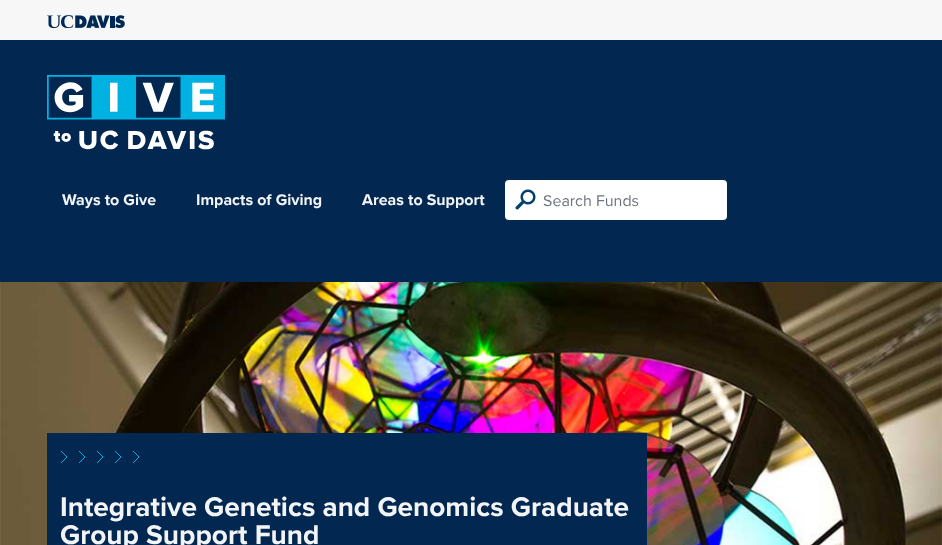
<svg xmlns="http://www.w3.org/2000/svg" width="942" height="545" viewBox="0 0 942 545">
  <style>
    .t1 { font: bold 16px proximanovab; fill: #f2f4f6; }
    .t2 { font: 16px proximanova; fill: #6c757d; }
    .t3 { font: bold 28px proximanovab; fill: #f2f4f6; }
  </style>
  <rect width="100%" height="100%" fill="#fff"/>
  <rect x="0" y="0" width="942" height="40" fill="#f7f7f7"/>
  <image x="47" y="15" width="78" height="14" href="images/1.png"/>
  <rect x="0" y="40" width="942" height="242" fill="#022851"/>
  <image x="47" y="75" width="178" height="75" href="images/2.png"/>
  <text x="62" y="205" class="t1">Ways to Give</text>
  <text x="196" y="205" class="t1">Impacts of Giving</text>
  <text x="362" y="205" class="t1">Areas to Support</text>
  <rect x="505" y="180" width="222" height="40" rx="4" fill="#fff"/>
  <image x="515" y="189" width="21" height="21" href="images/3.png"/>
  <text x="543" y="206" class="t2">Search Funds</text>
  <image x="0" y="282" width="942" height="263" href="images/4.png"/>
  <rect x="47" y="433" width="600" height="112" fill="#022851"/>
  <path d="M79 463L85 457L79 451M61 463L67 457L61 451M97 463L103 457L97 451" fill="none" stroke="#00b2e3"/>
  <path d="M133 463L139 457L133 451M115 463L121 457L115 451" fill="none" stroke="#00b2e3"/>
  <text x="60" y="516" class="t3">Integrative Genetics and Genomics Graduate</text>
  <text x="60" y="544" class="t3">Group Support Fund</text>
</svg>
